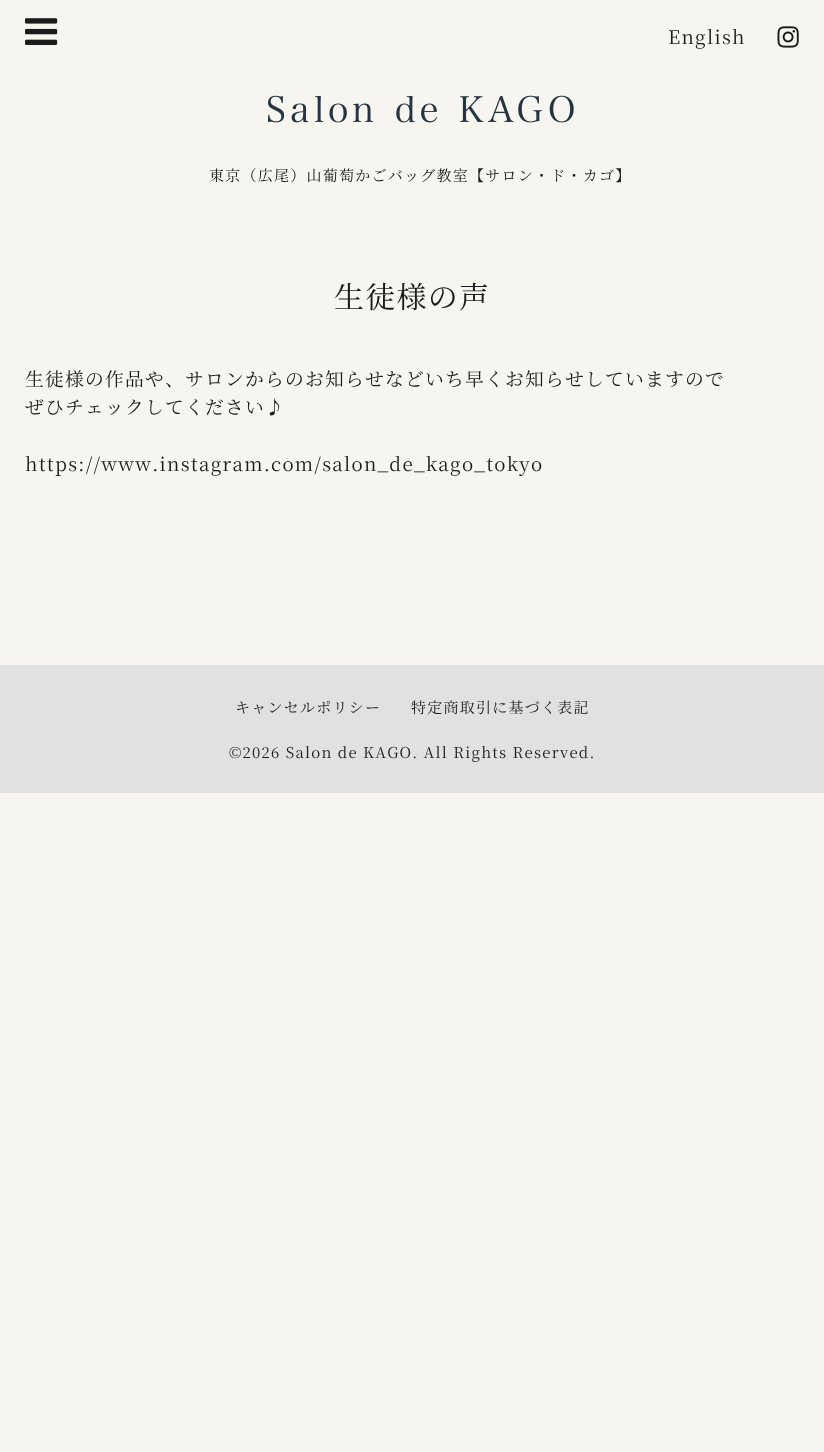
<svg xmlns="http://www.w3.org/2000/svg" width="824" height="1452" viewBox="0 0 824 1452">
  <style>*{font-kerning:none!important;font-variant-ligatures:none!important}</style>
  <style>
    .t1 { font: 200 18.75px Noto Serif JP; letter-spacing: 1.25px; fill: #1b1b1b; }
    .t2 { font: 200 15px Noto Serif JP; letter-spacing: 1.25px; fill: #1b1b1b; }
    .t3 { font: 200 30px Noto Serif JP; letter-spacing: 1.25px; fill: #1b1b1b; }
  </style>
  <rect width="100%" height="100%" fill="#f6f5f0"/>
  <image x="25" y="18" width="33" height="27" href="images/1.png"/>
  <text x="668" y="44" class="t1">English</text>
  <image x="777" y="26" width="22" height="22" href="images/2.png"/>
  <image x="268" y="95" width="306" height="28" href="images/3.png"/>
  <text x="209" y="181" class="t2">東京（広尾）山葡萄かごバッグ教室【サロン・ド・カゴ】</text>
  <text x="334" y="308" class="t3">生徒様の声</text>
  <text x="25" y="386" class="t1">生徒様の作品や、サロンからのお知らせなどいち早くお知らせしていますので</text>
  <text x="25" y="414" class="t1">ぜひチェックしてください♪</text>
  <text x="25" y="471" class="t1">https://www.instagram.com/salon_de_kago_tokyo</text>
  <rect x="0" y="665" width="824" height="128" fill="#e1e1e1"/>
  <text x="235" y="713" class="t2">キャンセルポリシー</text>
  <text x="411" y="713" class="t2">特定商取引に基づく表記</text>
  <text x="229" y="758" class="t2">©2026 Salon de KAGO. All Rights Reserved.</text>
</svg>
